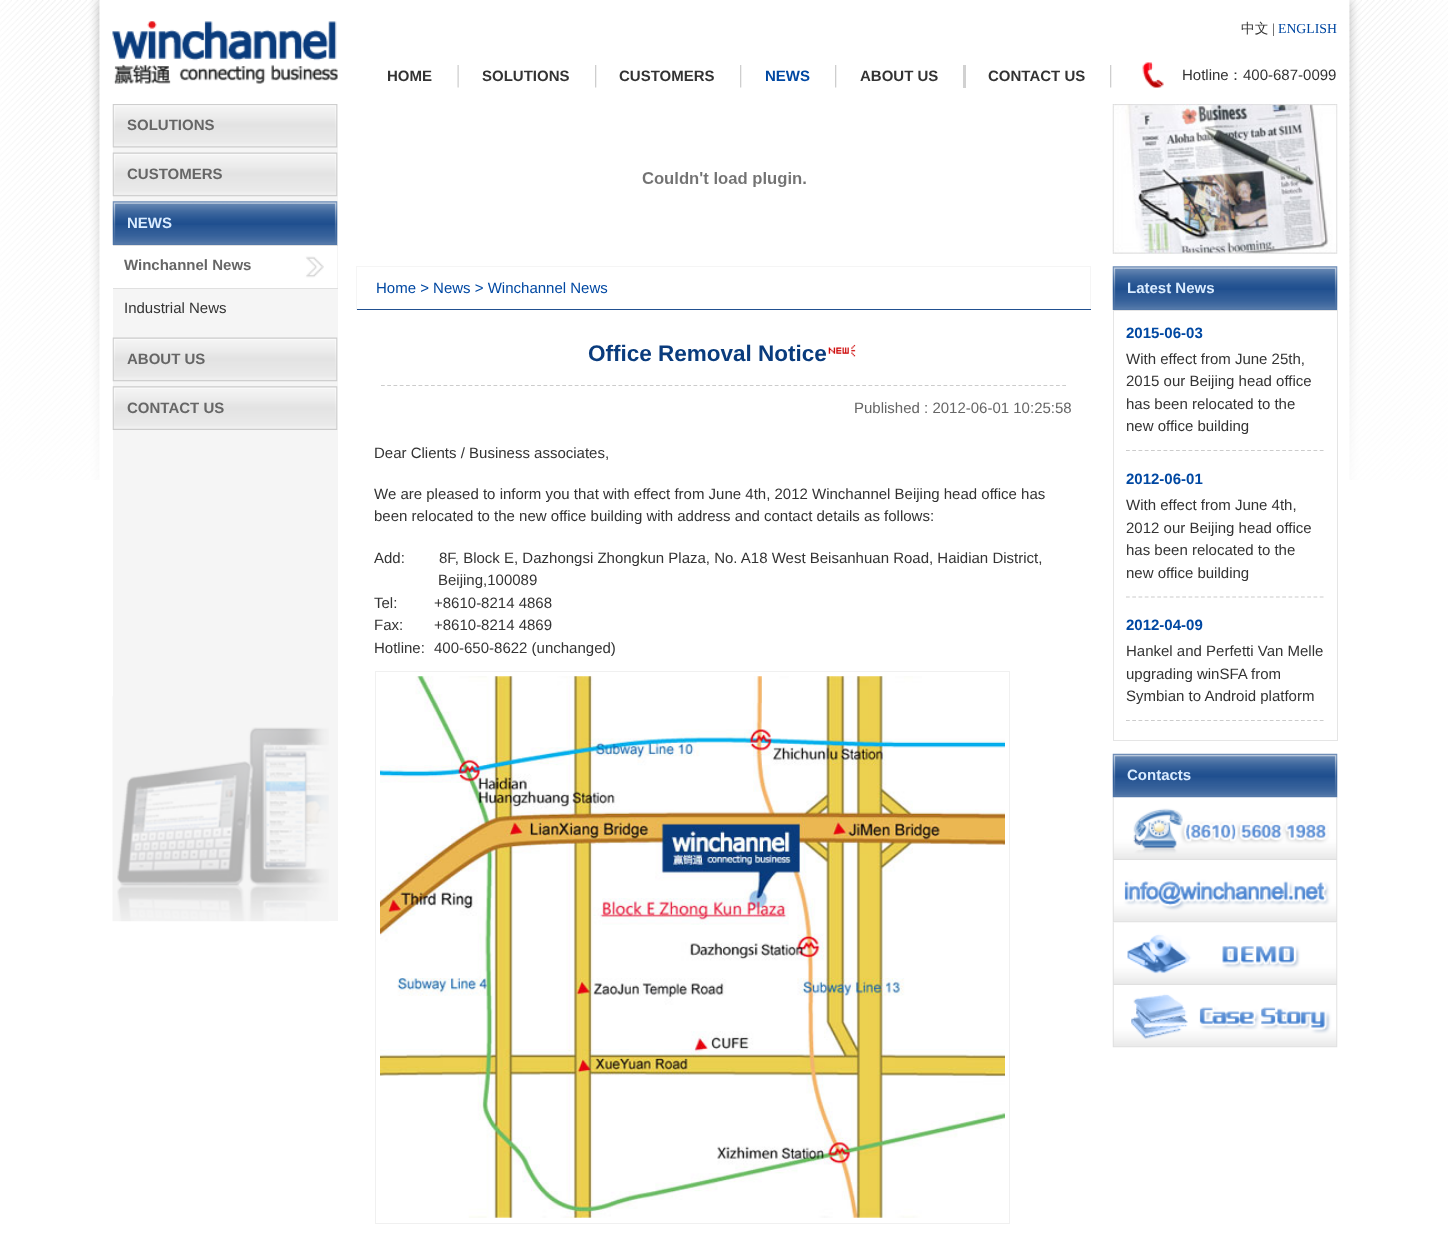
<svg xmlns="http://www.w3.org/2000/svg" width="1448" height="1256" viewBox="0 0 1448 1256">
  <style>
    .t1 { font: 500 13.75px WenQuanYi Zen Hei; fill: #333; }
    .t2 { font: 13.75px Liberation Serif; fill: #333; }
    .t3 { font: 13.75px Liberation Serif; fill: #0048a2; }
    .t4 { font: bold 15px Liberation Sans; fill: #333; }
    .t5 { font: bold 15px Liberation Sans; fill: #0048a2; }
    .t6 { font: 15px Liberation Sans; fill: #333; }
    .t7 { font: 500 15px WenQuanYi Zen Hei; fill: #333; }
    .t8 { font: bold 15px Liberation Sans; fill: #666; }
    .t9 { font: bold 15px Liberation Sans; fill: #daecff; }
    .t10 { font: 15px Liberation Sans; fill: #0048a2; }
    .t11 { font: bold 22.5px Liberation Sans; fill: #0a3c7d; }
    .t12 { font: 15px Liberation Sans; fill: #666; }
  </style>
  <rect width="100%" height="100%" fill="#fff"/>
  <image x="0" y="0" width="1448" height="480" href="images/1.png"/>
  <image x="112" y="21" width="226" height="63" href="images/2.png"/>
  <text x="1241" y="33" class="t1">中文</text>
  <text x="1272" y="33" class="t2">|</text>
  <text x="1278" y="33" class="t3">ENGLISH</text>
  <text x="387" y="81" class="t4">HOME</text>
  <image x="457" y="65" width="2" height="23" href="images/3.png"/>
  <text x="482" y="81" class="t4">SOLUTIONS</text>
  <image x="595" y="65" width="2" height="23" href="images/4.png"/>
  <text x="619" y="81" class="t4">CUSTOMERS</text>
  <image x="740" y="65" width="2" height="23" href="images/4.png"/>
  <text x="765" y="81" class="t5">NEWS</text>
  <image x="835" y="65" width="2" height="23" href="images/4.png"/>
  <text x="860" y="81" class="t4">ABOUT US</text>
  <rect x="963" y="65" width="3" height="23" fill="#d1d1d1"/>
  <text x="988" y="81" class="t4">CONTACT US</text>
  <image x="1110" y="65" width="2" height="23" href="images/4.png"/>
  <image x="1142" y="62" width="22" height="26" href="images/5.png"/>
  <text x="1182" y="80" class="t6">Hotline</text>
  <text x="1228" y="80" class="t7">：</text>
  <text x="1243" y="80" class="t6">400-687-0099</text>
  <rect x="113" y="104" width="225" height="817" fill="#f5f5f5"/>
  <image x="112" y="696" width="217" height="226" href="images/6.png"/>
  <image x="112" y="104" width="226" height="44" href="images/7.png"/>
  <text x="127" y="130" class="t8">SOLUTIONS</text>
  <image x="112" y="152" width="226" height="45" href="images/8.png"/>
  <text x="127" y="179" class="t8">CUSTOMERS</text>
  <image x="112" y="201" width="226" height="44" href="images/9.png"/>
  <text x="127" y="228" class="t9">NEWS</text>
  <image x="113" y="246" width="224" height="42" href="images/10.png"/>
  <rect x="113" y="245" width="225" height="1" fill="#e0e0e0"/>
  <rect x="113" y="288" width="225" height="1" fill="#e0e0e0"/>
  <text x="124" y="270" class="t8">Winchannel News</text>
  <text x="124" y="313" class="t6">Industrial News</text>
  <image x="112" y="337" width="226" height="45" href="images/8.png"/>
  <text x="127" y="364" class="t8">ABOUT US</text>
  <image x="112" y="386" width="226" height="44" href="images/11.png"/>
  <text x="127" y="413" class="t8">CONTACT US</text>
  <image x="642" y="172" width="164" height="15" href="images/12.png"/>
  <rect x="356" y="266" width="735" height="1" fill="#f5f5f5"/>
  <rect x="1090" y="266" width="1" height="44" fill="#f5f5f5"/>
  <rect x="356" y="309" width="735" height="1" fill="#215090"/>
  <rect x="356" y="266" width="1" height="44" fill="#f5f5f5"/>
  <text x="376" y="293" class="t10">Home &gt; News &gt; Winchannel News</text>
  <text x="588" y="361" class="t11">Office Removal Notice</text>
  <image x="828" y="344" width="28" height="13" href="images/13.png"/>
  <path d="M381 385.5H1066" fill="none" stroke="#ccc" stroke-width="1.2" stroke-dasharray="3.75 2.5"/>
  <text x="854" y="413" class="t12">Published : 2012-06-01 10:25:58</text>
  <text x="374" y="458" class="t6">Dear Clients / Business associates,</text>
  <text x="374" y="499" class="t6">We are pleased to inform you that with effect from June 4th, 2012 Winchannel Beijing head office has</text>
  <text x="374" y="521" class="t6">been relocated to the new office building with address and contact details as follows:</text>
  <text x="374" y="563" class="t6">Add:</text>
  <text x="439" y="563" class="t6">8F, Block E, Dazhongsi Zhongkun Plaza, No. A18 West Beisanhuan Road, Haidian District,</text>
  <text x="438" y="585" class="t6">Beijing,100089</text>
  <text x="374" y="608" class="t6">Tel:</text>
  <text x="434" y="608" class="t6">+8610-8214 4868</text>
  <text x="374" y="630" class="t6">Fax:</text>
  <text x="434" y="630" class="t6">+8610-8214 4869</text>
  <text x="374" y="653" class="t6">Hotline:</text>
  <text x="434" y="653" class="t6">400-650-8622 (unchanged)</text>
  <rect x="375.5" y="671.5" width="634" height="552" fill="none" stroke="#f0f0f0"/>
  <image x="380" y="676" width="625" height="542" href="images/14.png"/>
  <image x="1112" y="104" width="226" height="150" href="images/15.png"/>
  <image x="1112" y="266" width="226" height="44" href="images/16.png"/>
  <text x="1127" y="293" class="t9">Latest News</text>
  <rect x="1113.5" y="310.5" width="224" height="430" fill="none" stroke="#e5e5e5"/>
  <path d="M1126 450.5H1324" fill="none" stroke="#ccc" stroke-width="1.2" stroke-dasharray="3.75 2.5"/>
  <text x="1126" y="338" class="t5">2015-06-03</text>
  <text x="1126" y="364" class="t6">With effect from June 25th,</text>
  <text x="1126" y="386" class="t6">2015 our Beijing head office</text>
  <text x="1126" y="409" class="t6">has been relocated to the</text>
  <text x="1126" y="431" class="t6">new office building</text>
  <path d="M1126 597H1324" fill="none" stroke="#ccc" stroke-width="1.2" stroke-dasharray="3.75 2.5"/>
  <text x="1126" y="484" class="t5">2012-06-01</text>
  <text x="1126" y="510" class="t6">With effect from June 4th,</text>
  <text x="1126" y="533" class="t6">2012 our Beijing head office</text>
  <text x="1126" y="555" class="t6">has been relocated to the</text>
  <text x="1126" y="578" class="t6">new office building</text>
  <path d="M1126 720.5H1324" fill="none" stroke="#ccc" stroke-width="1.2" stroke-dasharray="3.75 2.5"/>
  <text x="1126" y="630" class="t5">2012-04-09</text>
  <text x="1126" y="656" class="t6">Hankel and Perfetti Van Melle</text>
  <text x="1126" y="679" class="t6">upgrading winSFA from</text>
  <text x="1126" y="701" class="t6">Symbian to Android platform</text>
  <image x="1112" y="753" width="226" height="45" href="images/17.png"/>
  <text x="1127" y="780" class="t9">Contacts</text>
  <image x="1112" y="797" width="226" height="63" href="images/18.png"/>
  <image x="1112" y="860" width="226" height="63" href="images/19.png"/>
  <image x="1112" y="922" width="226" height="63" href="images/20.png"/>
  <image x="1112" y="985" width="226" height="63" href="images/21.png"/>
</svg>
